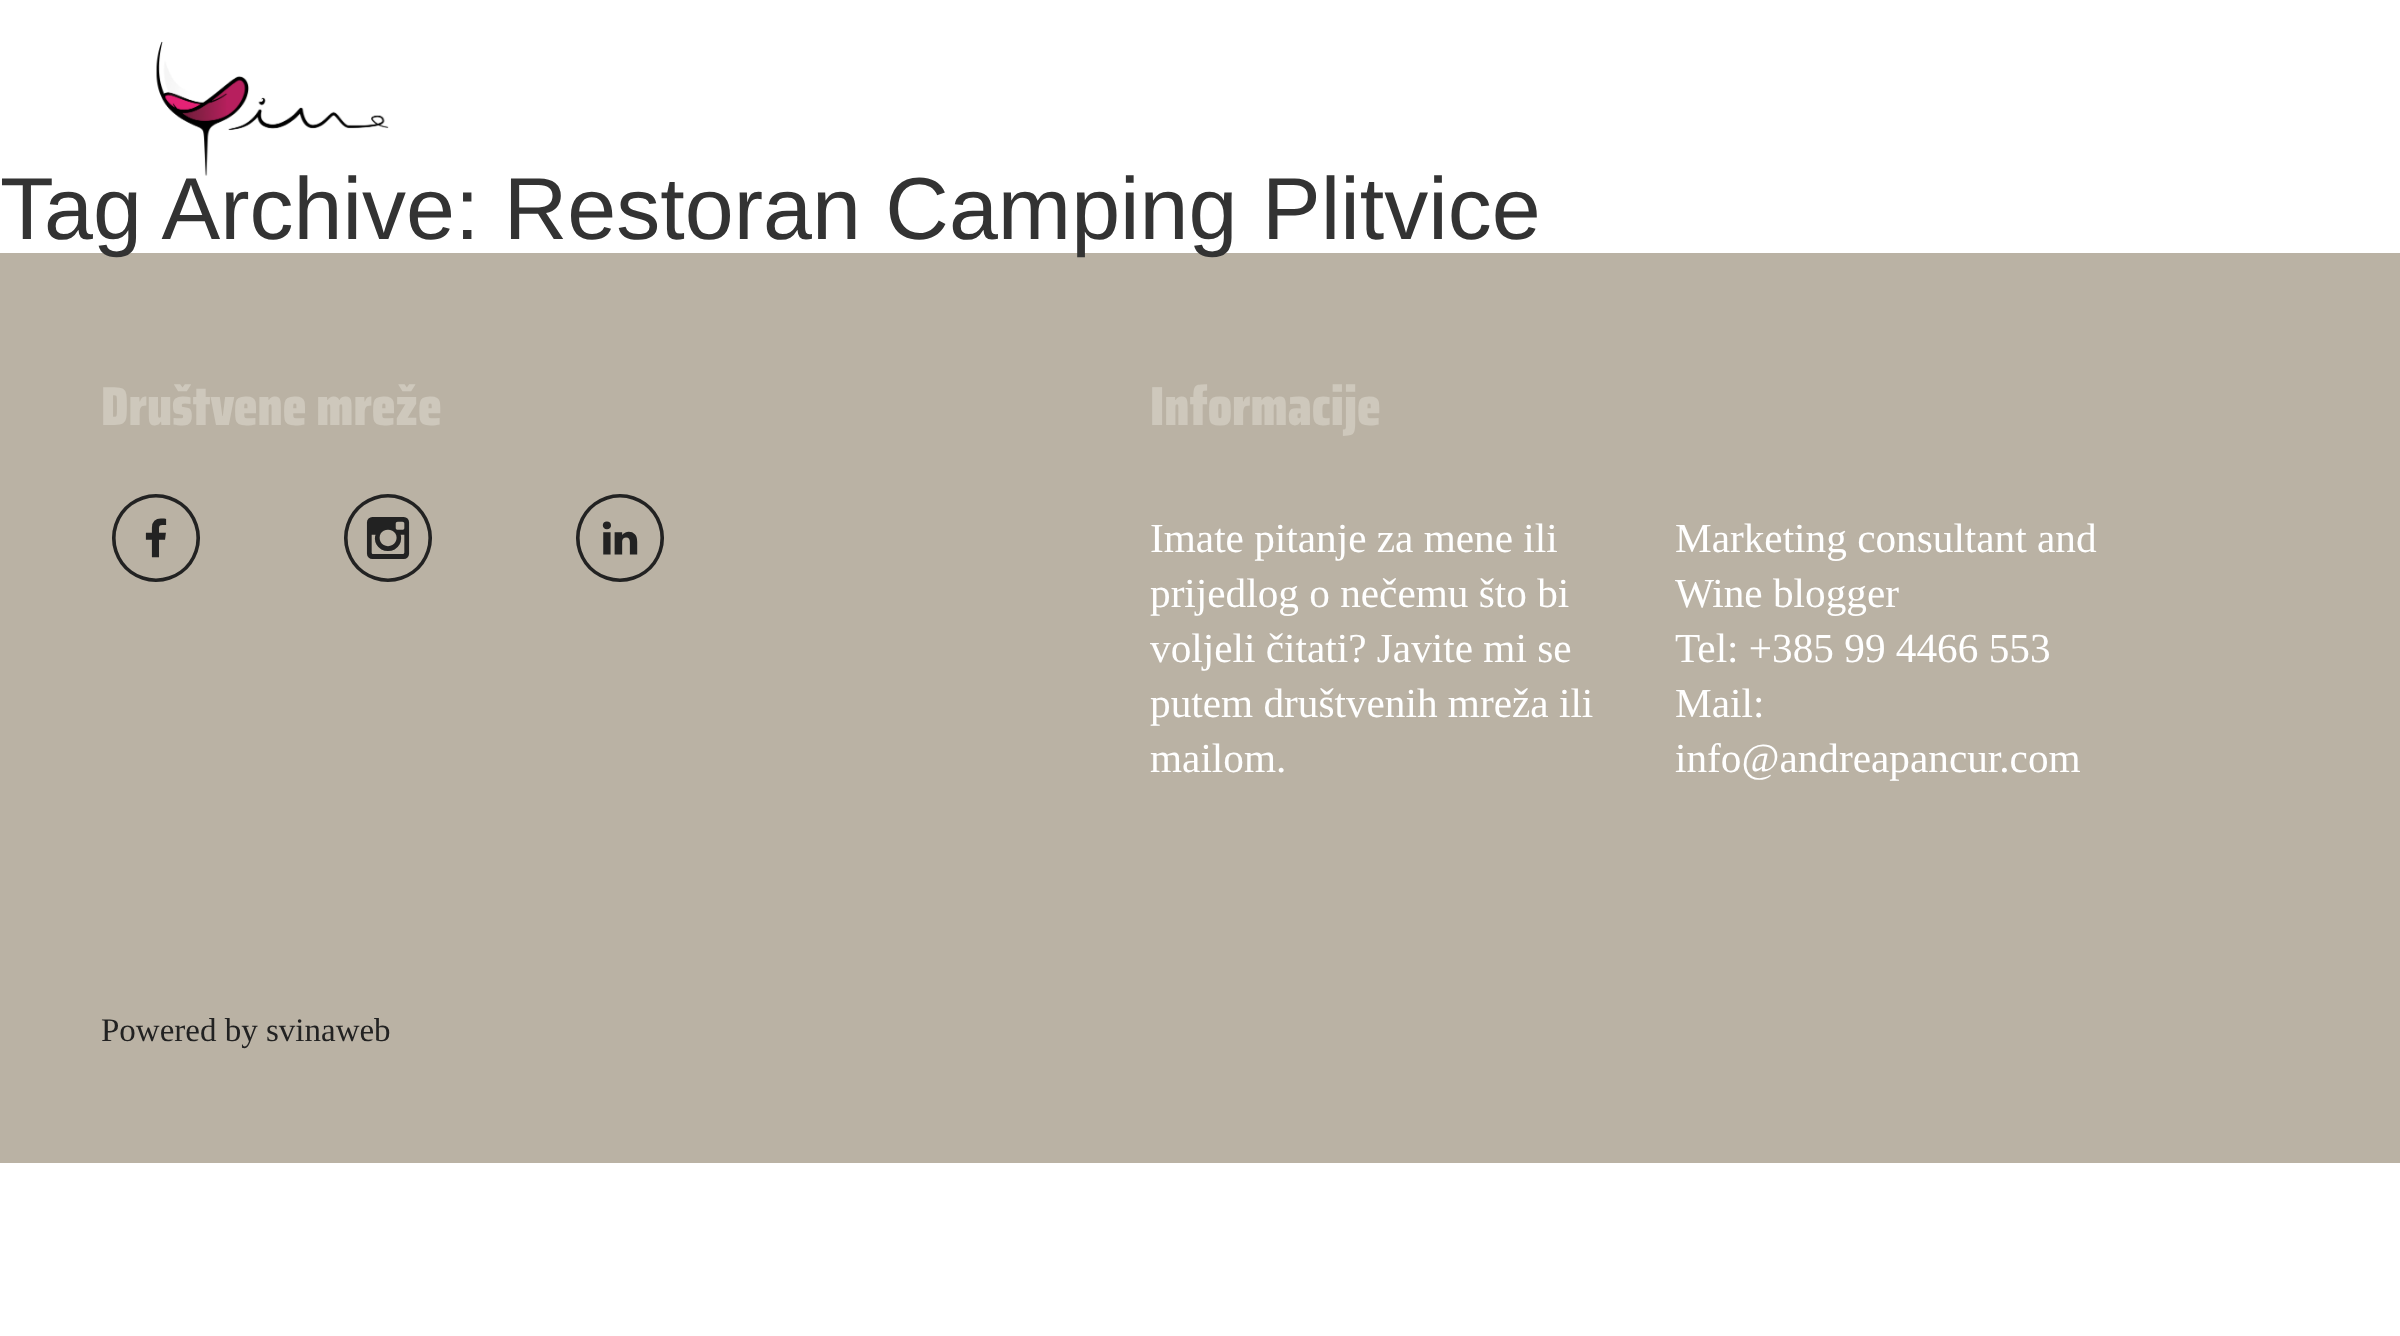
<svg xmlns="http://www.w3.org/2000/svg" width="2400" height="1336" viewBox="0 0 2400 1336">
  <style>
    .t1 { font: 88px Liberation Sans; fill: #333; }
    .t2 { font: 900 55px Saira Condensed; fill: #cec8bc; }
    .t3 { font: 110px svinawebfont; fill: #222; }
    .t4 { font: 41.25px Liberation Serif; fill: #fff; }
    .t5 { font: 33px Liberation Serif; fill: #222; }
  </style>
  <rect width="100%" height="100%" fill="#fff"/>
  <rect x="0" y="253" width="2400" height="910" fill="#bab2a4"/>
  <text x="0" y="239" class="t1">Tag Archive: Restoran Camping Plitvice</text>
  <image x="156" y="41" width="233" height="135" href="images/1.png"/>
  <text x="101" y="425" class="t2">Društvene mreže</text>
  <text x="101" y="593" class="t3">k</text>
  <text x="333" y="593" class="t3">o</text>
  <text x="565" y="593" class="t3">p</text>
  <text x="1150" y="425" class="t2">Informacije</text>
  <text x="1150" y="552" class="t4">Imate pitanje za mene ili</text>
  <text x="1150" y="607" class="t4">prijedlog o nečemu što bi</text>
  <text x="1150" y="662" class="t4">voljeli čitati? Javite mi se</text>
  <text x="1150" y="717" class="t4">putem društvenih mreža ili</text>
  <text x="1150" y="772" class="t4">mailom.</text>
  <text x="1675" y="552" class="t4">Marketing consultant and</text>
  <text x="1675" y="607" class="t4">Wine blogger</text>
  <text x="1675" y="662" class="t4">Tel: +385 99 4466 553</text>
  <text x="1675" y="717" class="t4">Mail:</text>
  <text x="1675" y="772" class="t4">info@andreapancur.com</text>
  <text x="101" y="1041" class="t5">Powered by svinaweb</text>
</svg>
